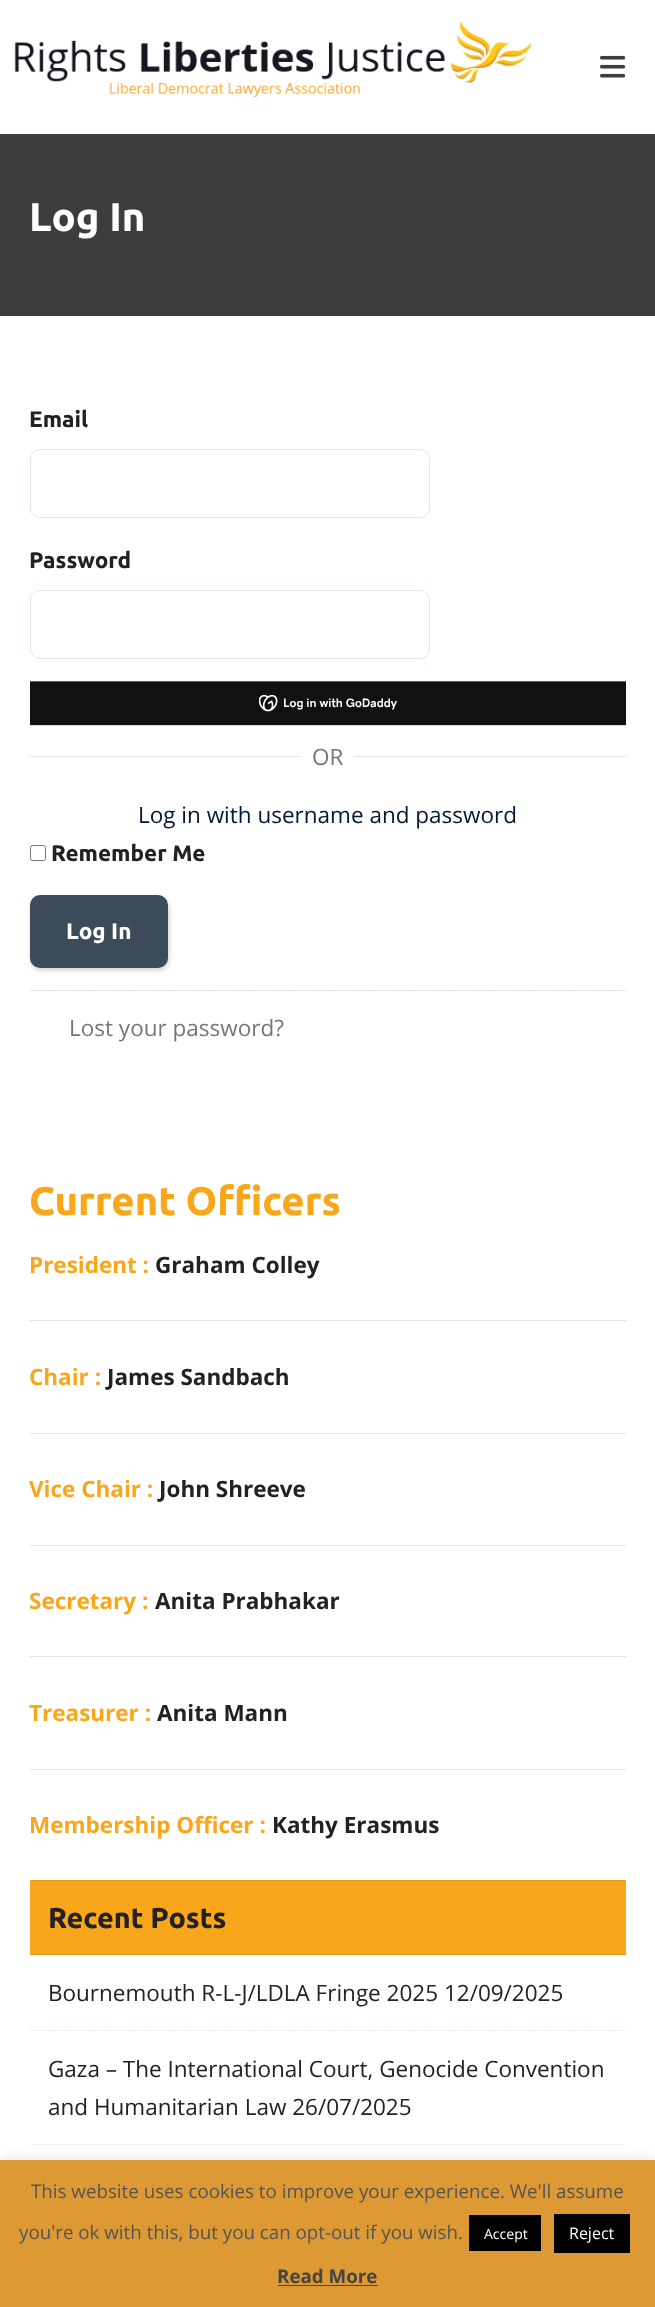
<svg xmlns="http://www.w3.org/2000/svg" width="655" height="2307" viewBox="0 0 655 2307">
  <style>
    .t1 { font: bold 40px Ubuntu; fill: #fff; }
    .t2 { font: bold 22.5px Ubuntu; fill: #222; }
    .t3 { font: bold 12.25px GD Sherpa; fill: #fff; }
    .t4 { font: 22.5px Open Sans; fill: #777; }
    .t5 { font: 22.5px Open Sans; fill: #011935; }
    .t6 { font: bold 22.5px Ubuntu; fill: #fff; }
    .t7 { font: bold 40px Ubuntu; fill: #faa61a; }
    .t8 { font: bold 22.5px Open Sans; fill: #faa61a; }
    .t9 { font: bold 22.5px Open Sans; fill: #222; }
    .t10 { font: bold 28.75px Ubuntu; fill: #222; }
    .t11 { font: 22.5px Open Sans; fill: #222; }
    .t12 { font: 18.75px Open Sans; fill: #545454; }
    .t13 { font: 14px Open Sans; fill: #fff; }
    .t14 { font: 16px Open Sans; fill: #fff; }
    .t15 { font: bold 18.75px Open Sans; fill: #444; }
  </style>
  <rect width="100%" height="100%" fill="#fff"/>
  <image x="14" y="22" width="518" height="76" href="images/1.png"/>
  <image x="600" y="55" width="26" height="23" href="images/2.png"/>
  <rect x="0" y="134" width="655" height="182" fill="#3d3d3d"/>
  <text x="29" y="231" class="t1">Log In</text>
  <text x="29" y="427" class="t2">Email</text>
  <rect x="30.5" y="449.5" width="399" height="68" rx="9.5" fill="none" stroke="#dee9e6"/>
  <text x="29" y="568" class="t2">Password</text>
  <rect x="30.5" y="590.5" width="399" height="68" rx="9.5" fill="none" stroke="#dee9e6"/>
  <rect x="30" y="725" width="596" height="1" fill="#d9d9d9"/>
  <rect x="30" y="682" width="596" height="43" fill="#111"/>
  <rect x="30" y="681" width="596" height="1" fill="#456d7c"/>
  <image x="259" y="694" width="19" height="18" href="images/3.png"/>
  <text x="283" y="707" class="t3">Log in with GoDaddy</text>
  <rect x="30" y="756" width="596" height="1" fill="#e5e5e5"/>
  <rect x="301" y="756" width="53" height="1" fill="#fff"/>
  <text x="312" y="765" class="t4">OR</text>
  <text x="138" y="823" class="t5">Log in with username and password</text>
  <rect x="30.5" y="845.5" width="15" height="15" rx="2" fill="none" stroke="#767676"/>
  <text x="51" y="861" class="t2">Remember Me</text>
  <rect x="31" y="898" width="138" height="72" rx="10" fill="#00000033" filter="blur(2.5px)"/>
  <rect x="30" y="895" width="138" height="73" rx="10" fill="#3c4b5a"/>
  <text x="66" y="939" class="t6">Log In</text>
  <path d="M30 990.5H626" fill="none" stroke="#ccc" stroke-width="1.2" stroke-dasharray="1.25 1.25"/>
  <text x="69" y="1036" class="t4">Lost your password?</text>
  <text x="29" y="1215" class="t7">Current Officers</text>
  <text x="29" y="1273" class="t8">President :</text>
  <text x="155" y="1273" class="t9">Graham Colley</text>
  <rect x="30" y="1320" width="596" height="1" fill="#dee9e6"/>
  <text x="29" y="1385" class="t8">Chair :</text>
  <text x="107" y="1385" class="t9">James Sandbach</text>
  <rect x="30" y="1433" width="596" height="1" fill="#dee9e6"/>
  <text x="29" y="1497" class="t8">Vice Chair :</text>
  <text x="159" y="1497" class="t9">John Shreeve</text>
  <rect x="30" y="1545" width="596" height="1" fill="#dee9e6"/>
  <text x="29" y="1609" class="t8">Secretary :</text>
  <text x="155" y="1609" class="t9">Anita Prabhakar</text>
  <rect x="30" y="1656" width="596" height="1" fill="#dee9e6"/>
  <text x="29" y="1721" class="t8">Treasurer :</text>
  <text x="157" y="1721" class="t9">Anita Mann</text>
  <rect x="30" y="1769" width="596" height="1" fill="#dee9e6"/>
  <text x="29" y="1833" class="t8">Membership Officer :</text>
  <text x="272" y="1833" class="t9">Kathy Erasmus</text>
  <rect x="30" y="1881" width="596" height="73" fill="#faa61a"/>
  <rect x="30" y="1880" width="596" height="1" fill="#da9b1f"/>
  <rect x="30" y="1954" width="596" height="1" fill="#da9b1f"/>
  <text x="48" y="1928" class="t10">Recent Posts</text>
  <path d="M30 2030.5H626" fill="none" stroke="#dee9e6" stroke-width="1.2" stroke-dasharray="1.25 1.25"/>
  <text x="48" y="2001" class="t11">Bournemouth R-L-J/LDLA Fringe 2025 12/09/2025</text>
  <path d="M30 2144.5H626" fill="none" stroke="#dee9e6" stroke-width="1.2" stroke-dasharray="1.25 1.25"/>
  <text x="48" y="2077" class="t11">Gaza – The International Court, Genocide Convention</text>
  <text x="48" y="2115" class="t11">and Humanitarian Law 26/07/2025</text>
  <rect x="0" y="2159" width="655" height="147" fill="#acabab4d" filter="blur(6px)"/>
  <rect x="0" y="2160" width="655" height="147" fill="#d93"/>
  <text x="31" y="2198" class="t12">This website uses cookies to improve your experience. We'll assume</text>
  <text x="19" y="2239" class="t12">you're ok with this, but you can opt-out if you wish.</text>
  <rect x="469" y="2215" width="72" height="36" fill="#000"/>
  <text x="484" y="2239" class="t13">Accept</text>
  <rect x="554" y="2214" width="76" height="39" fill="#000"/>
  <text x="569" y="2239" class="t14">Reject</text>
  <text x="277" y="2283" class="t15">Read More</text>
  <rect x="278" y="2285" width="100" height="1" fill="#444"/>
</svg>
